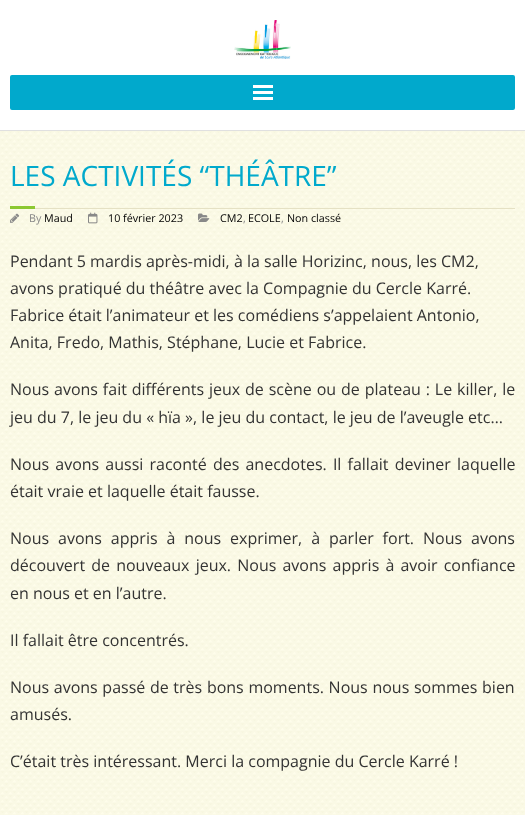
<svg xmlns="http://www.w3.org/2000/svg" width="525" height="815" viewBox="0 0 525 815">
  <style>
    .t1 { font: 28px Open Sans; fill: #01a9cc; }
    .t2 { font: 10.75px Open Sans; fill: #888; }
    .t3 { font: 10.75px Open Sans; fill: #000; }
    .t4 { font: 16px Open Sans; fill: #333; }
  </style>
  <rect width="100%" height="100%" fill="#fff"/>
  <image x="0" y="131" width="525" height="684" href="images/1.png"/>
  <rect x="0" y="130" width="525" height="1" fill="#e0e0e0"/>
  <image x="234" y="20" width="57" height="39" href="images/2.png"/>
  <rect x="10" y="75" width="505" height="35" rx="2" fill="#01a9cc"/>
  <rect x="253" y="85" width="20" height="3" fill="#fff"/>
  <rect x="253" y="91" width="20" height="3" fill="#fff"/>
  <rect x="253" y="97" width="20" height="3" fill="#fff"/>
  <text x="10" y="186" class="t1">LES ACTIVITÉS “THÉÂTRE”</text>
  <rect x="10" y="206" width="25" height="3" fill="#8cc832"/>
  <rect x="35" y="208" width="480" height="1" fill="#e5e1c4"/>
  <image x="10" y="213" width="10" height="10" href="images/3.png"/>
  <text x="29" y="222" class="t2">By</text>
  <text x="44" y="222" class="t3">Maud</text>
  <image x="88" y="212" width="10" height="12" href="images/4.png"/>
  <text x="108" y="222" class="t3">10 février 2023</text>
  <image x="198" y="213" width="12" height="9" href="images/5.png"/>
  <text x="220" y="222" class="t3">CM2</text>
  <text x="243" y="222" class="t2">,</text>
  <text x="248" y="222" class="t3">ECOLE</text>
  <text x="281" y="222" class="t2">,</text>
  <text x="287" y="222" class="t3">Non classé</text>
  <text x="10" y="267" class="t4">Pendant 5 mardis après-midi, à la salle Horizinc, nous, les CM2,</text>
  <text x="10" y="294" class="t4">avons pratiqué du théâtre avec la Compagnie du Cercle Karré.</text>
  <text x="10" y="321" class="t4">Fabrice était l’animateur et les comédiens s’appelaient Antonio,</text>
  <text x="10" y="348" class="t4">Anita, Fredo, Mathis, Stéphane, Lucie et Fabrice.</text>
  <text x="10" y="395" word-spacing="0.75" class="t4">Nous avons fait différents jeux de scène ou de plateau : Le killer, le</text>
  <text x="10" y="423" class="t4">jeu du 7, le jeu du « hïa », le jeu du contact, le jeu de l’aveugle etc…</text>
  <text x="10" y="470" word-spacing="2" class="t4">Nous avons aussi raconté des anecdotes. Il fallait deviner laquelle</text>
  <text x="10" y="497" class="t4">était vraie et laquelle était fausse.</text>
  <text x="10" y="544" word-spacing="4.75" class="t4">Nous avons appris à nous exprimer, à parler fort. Nous avons</text>
  <text x="10" y="571" word-spacing="2" class="t4">découvert de nouveaux jeux. Nous avons appris à avoir confiance</text>
  <text x="10" y="599" class="t4">en nous et en l’autre.</text>
  <text x="10" y="646" class="t4">Il fallait être concentrés.</text>
  <text x="10" y="693" word-spacing="0.5" class="t4">Nous avons passé de très bons moments. Nous nous sommes bien</text>
  <text x="10" y="720" class="t4">amusés.</text>
  <text x="10" y="767" class="t4">C’était très intéressant. Merci la compagnie du Cercle Karré !</text>
</svg>
